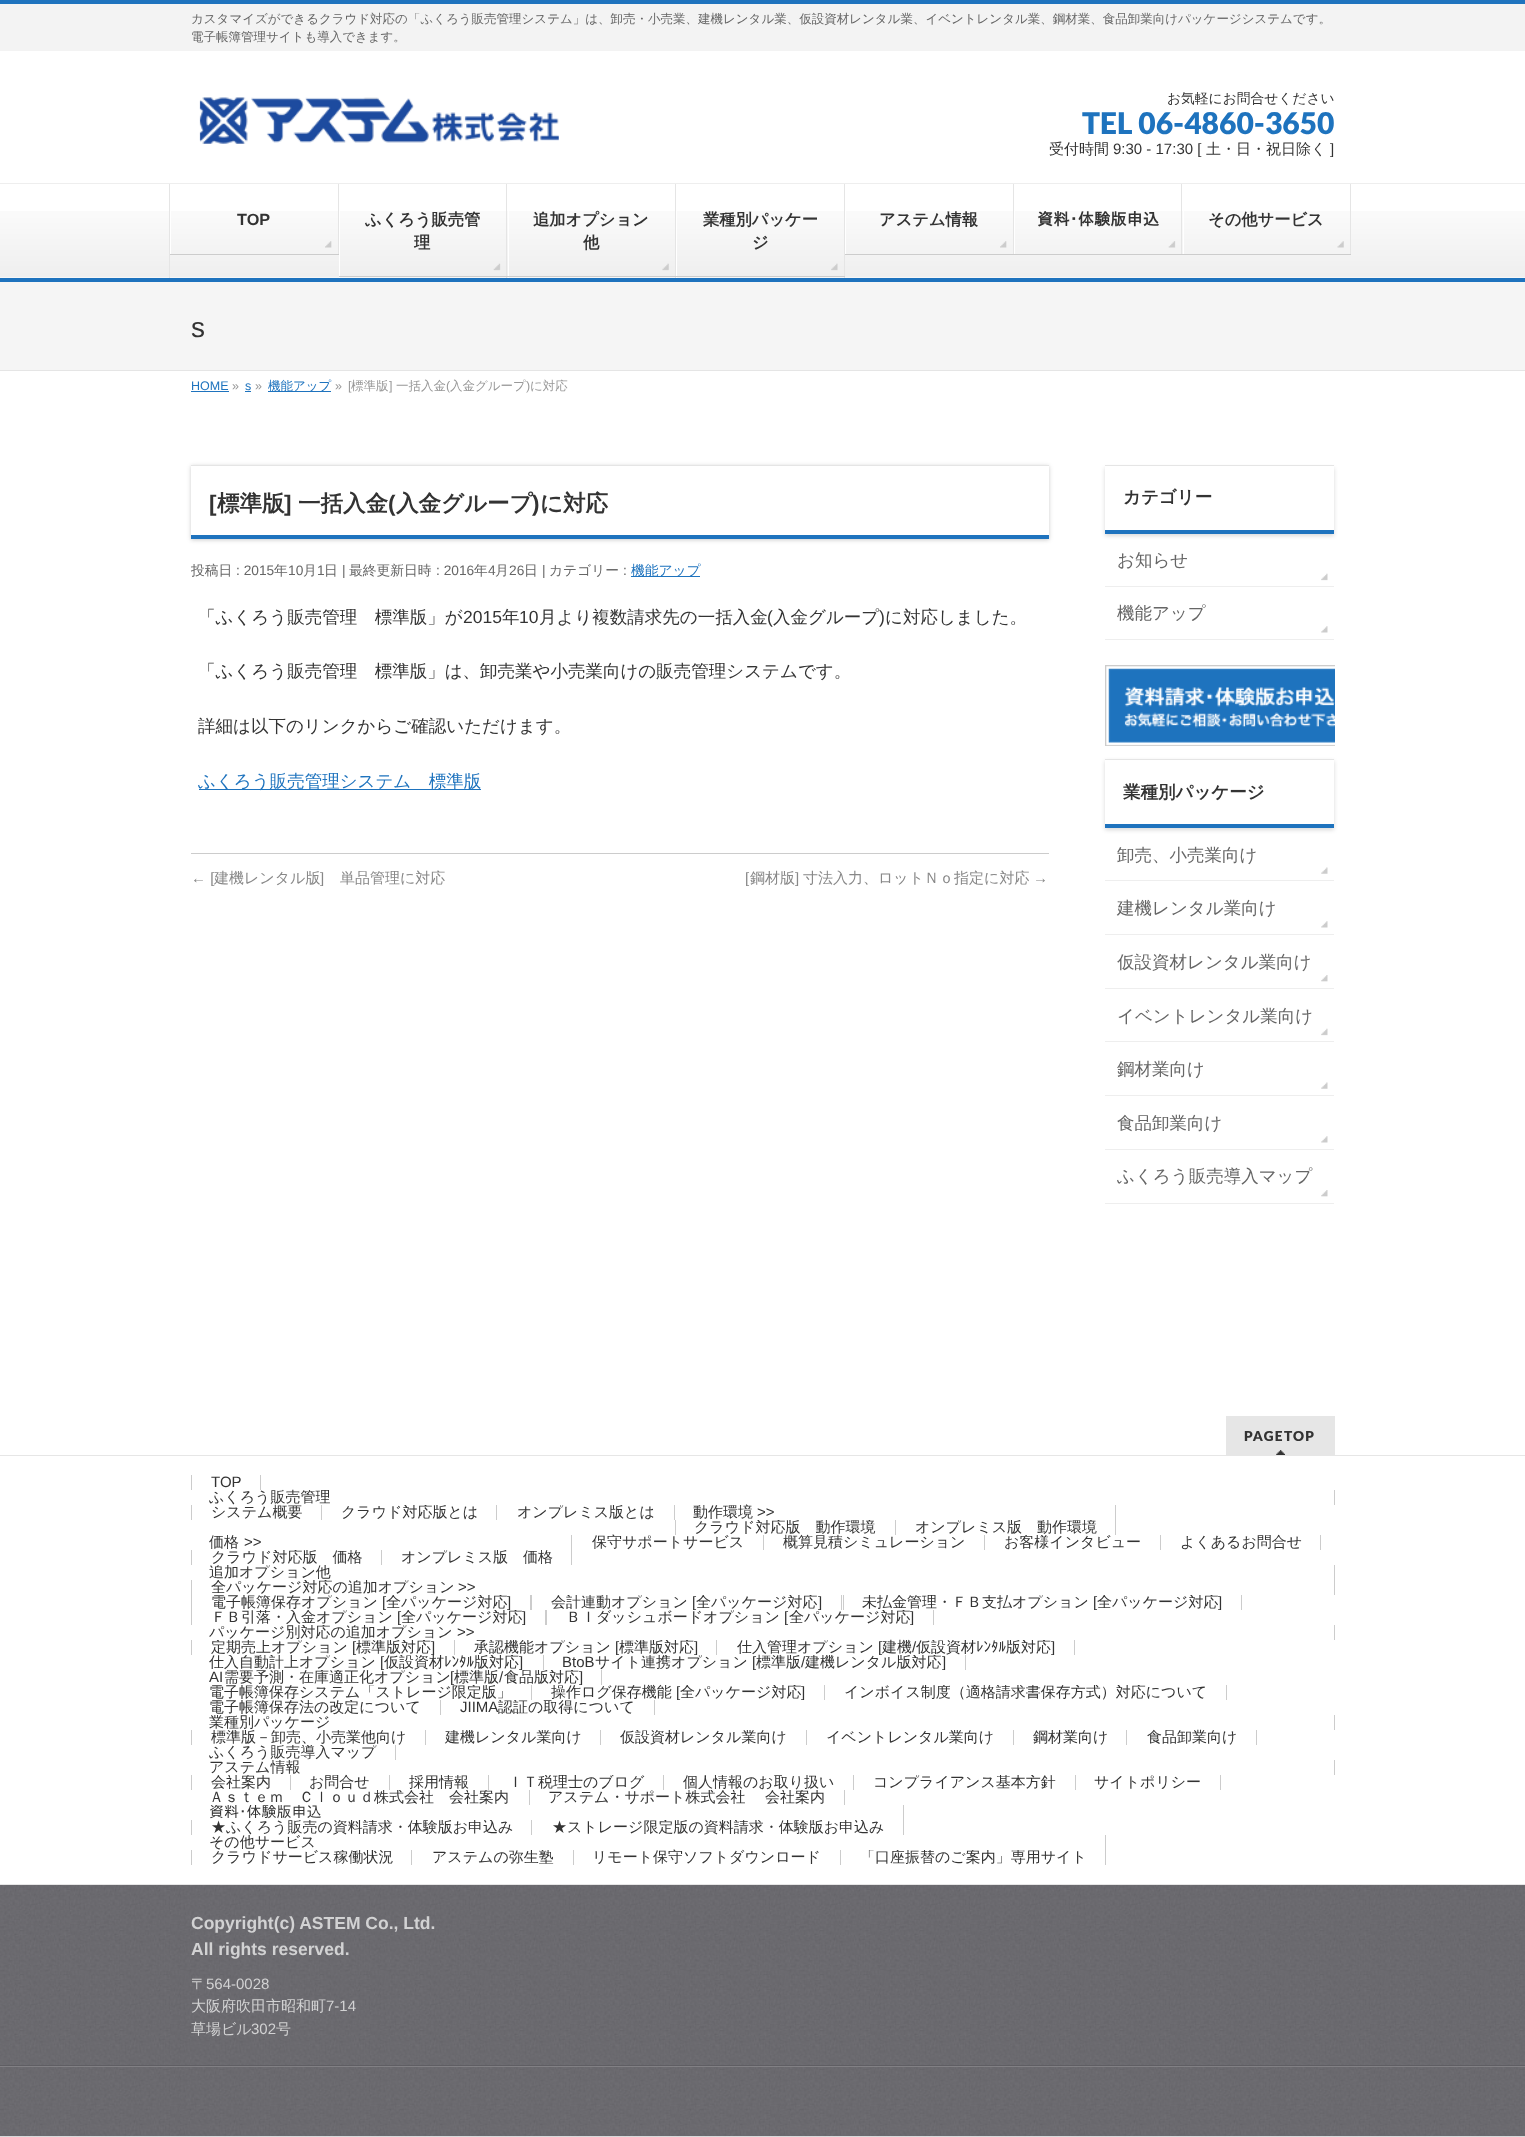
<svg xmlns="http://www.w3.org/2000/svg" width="1525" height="2137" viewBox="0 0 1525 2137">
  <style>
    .t1 { font: 500 12.5px WenQuanYi Zen Hei; fill: #666; }
    .t2 { font: 500 13.75px WenQuanYi Zen Hei; fill: #333; }
    .t3 { font: 900 30px Lato; fill: #1e73be; }
    .t4 { font: 500 15px WenQuanYi Zen Hei; fill: #333; }
    .t5 { font: 15px Liberation Sans; fill: #333; }
    .t6 { font: bold 16.25px Liberation Sans; fill: #333; }
    .t7 { font: bold 16.25px WenQuanYi Zen Hei; fill: #333; }
    .t8 { font: bold 16.25px IPAPGothic; fill: #333; }
    .t9 { font: 28px Liberation Sans; fill: #333; }
    .t10 { font: 12.5px Liberation Sans; fill: #1e73be; }
    .t11 { font: 12.5px Liberation Sans; fill: #999; }
    .t12 { font: 500 12.5px WenQuanYi Zen Hei; fill: #1e73be; }
    .t13 { font: 500 12.5px WenQuanYi Zen Hei; fill: #999; }
    .t14 { font: bold 22.5px Liberation Sans; fill: #333; }
    .t15 { font: bold 22.5px WenQuanYi Zen Hei; fill: #333; }
    .t16 { font: 500 13.75px WenQuanYi Zen Hei; fill: #666; }
    .t17 { font: 13.75px Liberation Sans; fill: #666; }
    .t18 { font: 500 13.75px WenQuanYi Zen Hei; fill: #1e73be; }
    .t19 { font: 500 17.5px WenQuanYi Zen Hei; fill: #333; }
    .t20 { font: 17.5px Liberation Sans; fill: #333; }
    .t21 { font: 500 17.5px WenQuanYi Zen Hei; fill: #1e73be; }
    .t22 { font: 15px Liberation Sans; fill: #888; }
    .t23 { font: 500 15px WenQuanYi Zen Hei; fill: #888; }
    .t24 { font: bold 17.5px WenQuanYi Zen Hei; fill: #333; }
    .t25 { font: 500 17.5px WenQuanYi Zen Hei; fill: #666; }
    .t26 { font: 900 13.75px Lato; letter-spacing: 1.25px; fill: #333; }
    .t27 { font: 15px IPAPGothic; fill: #333; }
    .t28 { font: bold 17.5px Liberation Sans; fill: #d2d2d3; }
    .t29 { font: 500 15px WenQuanYi Zen Hei; fill: #d2d2d3; }
    .t30 { font: 15px Liberation Sans; fill: #d2d2d3; }
  </style>
  <defs>
    <clipPath id="clip1"><path d="M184 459H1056V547H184ZM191 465H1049V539H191Z" clip-rule="evenodd"/></clipPath>
    <clipPath id="clip2"><path d="M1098 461H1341V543H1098ZM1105 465H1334V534H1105Z" clip-rule="evenodd"/></clipPath>
    <clipPath id="clip3"><path d="M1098 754H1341V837H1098ZM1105 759H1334V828H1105Z" clip-rule="evenodd"/></clipPath>
    <clipPath id="clip4"><rect x="323" y="1505" width="173" height="15"/></clipPath>
    <clipPath id="clip5"><rect x="498" y="1505" width="176" height="15"/></clipPath>
    <clipPath id="clip6"><rect x="676" y="1520" width="219" height="15"/></clipPath>
    <clipPath id="clip7"><rect x="896" y="1520" width="219" height="15"/></clipPath>
    <clipPath id="clip8"><rect x="193" y="1550" width="188" height="15"/></clipPath>
    <clipPath id="clip9"><rect x="383" y="1550" width="188" height="15"/></clipPath>
    <clipPath id="clip10"><rect x="985" y="1535" width="175" height="15"/></clipPath>
    <clipPath id="clip11"><rect x="191" y="1565" width="1143" height="15"/></clipPath>
    <clipPath id="clip12"><rect x="193" y="1580" width="1141" height="15"/></clipPath>
    <clipPath id="clip13"><rect x="193" y="1595" width="337" height="15"/></clipPath>
    <clipPath id="clip14"><rect x="533" y="1595" width="308" height="15"/></clipPath>
    <clipPath id="clip15"><rect x="844" y="1595" width="397" height="15"/></clipPath>
    <clipPath id="clip16"><rect x="193" y="1610" width="352" height="15"/></clipPath>
    <clipPath id="clip17"><rect x="548" y="1610" width="385" height="15"/></clipPath>
    <clipPath id="clip18"><rect x="191" y="1625" width="1143" height="15"/></clipPath>
    <clipPath id="clip19"><rect x="193" y="1640" width="261" height="15"/></clipPath>
    <clipPath id="clip20"><rect x="455" y="1640" width="261" height="15"/></clipPath>
    <clipPath id="clip21"><rect x="718" y="1640" width="356" height="15"/></clipPath>
    <clipPath id="clip22"><rect x="191" y="1655" width="352" height="15"/></clipPath>
    <clipPath id="clip23"><rect x="544" y="1655" width="421" height="15"/></clipPath>
    <clipPath id="clip24"><rect x="191" y="1670" width="410" height="15"/></clipPath>
    <clipPath id="clip25"><rect x="191" y="1685" width="340" height="15"/></clipPath>
    <clipPath id="clip26"><rect x="533" y="1685" width="291" height="15"/></clipPath>
    <clipPath id="clip27"><rect x="825" y="1685" width="401" height="15"/></clipPath>
    <clipPath id="clip28"><rect x="191" y="1700" width="249" height="15"/></clipPath>
    <clipPath id="clip29"><rect x="441" y="1700" width="213" height="15"/></clipPath>
    <clipPath id="clip30"><rect x="191" y="1715" width="1143" height="15"/></clipPath>
    <clipPath id="clip31"><rect x="193" y="1730" width="232" height="15"/></clipPath>
    <clipPath id="clip32"><rect x="426" y="1730" width="174" height="15"/></clipPath>
    <clipPath id="clip33"><rect x="601" y="1730" width="205" height="15"/></clipPath>
    <clipPath id="clip34"><rect x="808" y="1730" width="205" height="15"/></clipPath>
    <clipPath id="clip35"><rect x="1014" y="1730" width="112" height="15"/></clipPath>
    <clipPath id="clip36"><rect x="191" y="1745" width="204" height="15"/></clipPath>
    <clipPath id="clip37"><rect x="191" y="1760" width="1143" height="15"/></clipPath>
    <clipPath id="clip38"><rect x="193" y="1775" width="97" height="15"/></clipPath>
    <clipPath id="clip39"><rect x="390" y="1775" width="98" height="15"/></clipPath>
    <clipPath id="clip40"><rect x="489" y="1775" width="174" height="15"/></clipPath>
    <clipPath id="clip41"><rect x="664" y="1775" width="189" height="15"/></clipPath>
    <clipPath id="clip42"><rect x="854" y="1775" width="221" height="15"/></clipPath>
    <clipPath id="clip43"><rect x="191" y="1790" width="338" height="15"/></clipPath>
    <clipPath id="clip44"><rect x="530" y="1790" width="314" height="15"/></clipPath>
    <clipPath id="clip45"><rect x="191" y="1805" width="712" height="15"/></clipPath>
    <clipPath id="clip46"><rect x="193" y="1820" width="338" height="15"/></clipPath>
    <clipPath id="clip47"><rect x="533" y="1820" width="370" height="15"/></clipPath>
    <clipPath id="clip48"><rect x="193" y="1850" width="218" height="15"/></clipPath>
    <clipPath id="clip49"><rect x="413" y="1850" width="160" height="15"/></clipPath>
    <clipPath id="clip50"><rect x="841" y="1850" width="264" height="15"/></clipPath>
  </defs>
  <rect width="100%" height="100%" fill="#fff"/>
  <rect x="0" y="4" width="1525" height="47" fill="#f3f3f3"/>
  <rect x="0" y="0" width="1525" height="4" fill="#1e73be"/>
  <text x="191" y="23" class="t1">カスタマイズができるクラウド対応の「ふくろう販売管理システム」は、卸売・小売業、建機レンタル業、仮設資材レンタル業、イベントレンタル業、鋼材業、食品卸業向けパッケージシステムです。</text>
  <text x="191" y="41" class="t1">電子帳簿管理サイトも導入できます。</text>
  <image x="199" y="97" width="360" height="47" href="images/1.png"/>
  <text x="1167" y="103" class="t2">お気軽にお問合せください</text>
  <text x="1082" y="134" class="t3">TEL 06-4860-3650</text>
  <text x="1049" y="154" class="t4">受付時間</text>
  <text x="1113" y="154" class="t5">9:30 - 17:30 [</text>
  <text x="1206" y="154" class="t4">土・日・祝日除く</text>
  <text x="1330" y="154" class="t5">]</text>
  <image x="0" y="211" width="1525" height="67" href="images/2.png"/>
  <rect x="0" y="183" width="1525" height="1" fill="#eee"/>
  <rect x="0" y="278" width="1525" height="4" fill="#1e73be"/>
  <rect x="169" y="184" width="1" height="94" fill="#e5e5e5"/>
  <rect x="170" y="211" width="1" height="44" fill="#fff"/>
  <image x="325" y="241" width="7" height="7" href="images/3.png"/>
  <rect x="338" y="184" width="1" height="71" fill="#e5e5e5"/>
  <rect x="170" y="254" width="169" height="1" fill="#ccc"/>
  <text x="237" y="225" class="t6">TOP</text>
  <rect x="339" y="211" width="1" height="67" fill="#fff"/>
  <image x="493" y="263" width="8" height="8" href="images/4.png"/>
  <rect x="506" y="184" width="1" height="94" fill="#e5e5e5"/>
  <rect x="339" y="276" width="169" height="1" fill="#ccc"/>
  <text x="365" y="225" class="t7">ふくろう販売管</text>
  <text x="414" y="248" class="t7">理</text>
  <rect x="508" y="211" width="1" height="67" fill="#fff"/>
  <image x="662" y="263" width="7" height="8" href="images/5.png"/>
  <rect x="675" y="184" width="1" height="94" fill="#e5e5e5"/>
  <rect x="508" y="276" width="168" height="1" fill="#ccc"/>
  <text x="533" y="225" class="t7">追加オプション</text>
  <text x="583" y="248" class="t7">他</text>
  <rect x="676" y="211" width="1" height="67" fill="#fff"/>
  <image x="831" y="263" width="7" height="8" href="images/6.png"/>
  <rect x="844" y="184" width="1" height="94" fill="#e5e5e5"/>
  <rect x="676" y="276" width="169" height="1" fill="#ccc"/>
  <text x="703" y="225" class="t7">業種別パッケー</text>
  <text x="752" y="248" class="t7">ジ</text>
  <rect x="845" y="211" width="1" height="44" fill="#fff"/>
  <image x="1000" y="241" width="7" height="7" href="images/7.png"/>
  <rect x="1013" y="184" width="1" height="71" fill="#e5e5e5"/>
  <rect x="845" y="254" width="169" height="1" fill="#ccc"/>
  <text x="879" y="225" class="t7">アステム情報</text>
  <rect x="1014" y="211" width="1" height="44" fill="#fff"/>
  <image x="1168" y="241" width="8" height="7" href="images/8.png"/>
  <rect x="1181" y="184" width="1" height="71" fill="#e5e5e5"/>
  <rect x="1014" y="254" width="169" height="1" fill="#ccc"/>
  <text x="1037" y="225" class="t8">資料･体験版申込</text>
  <rect x="1183" y="211" width="1" height="44" fill="#fff"/>
  <image x="1337" y="241" width="7" height="7" href="images/9.png"/>
  <rect x="1350" y="184" width="1" height="71" fill="#e5e5e5"/>
  <rect x="1183" y="254" width="168" height="1" fill="#ccc"/>
  <text x="1208" y="225" class="t7">その他サービス</text>
  <rect x="0" y="282" width="1525" height="88" fill="#f5f5f5"/>
  <rect x="0" y="370" width="1525" height="1" fill="#e5e5e5"/>
  <text x="191" y="337" class="t9">s</text>
  <text x="191" y="390" class="t10">HOME</text>
  <rect x="191" y="391" width="38" height="1" fill="#1e73be"/>
  <text x="232" y="390" class="t11">»</text>
  <text x="245" y="390" class="t10">s</text>
  <rect x="245" y="391" width="6" height="1" fill="#1e73be"/>
  <text x="255" y="390" class="t11">»</text>
  <rect x="268" y="391" width="63" height="1" fill="#1e73be"/>
  <text x="268" y="390" class="t12">機能アップ</text>
  <text x="335" y="390" class="t11">»</text>
  <text x="348" y="390" class="t11">[</text>
  <text x="351" y="390" class="t13">標準版</text>
  <text x="389" y="390" class="t11">]</text>
  <text x="396" y="390" class="t13">一括入金</text>
  <text x="446" y="390" class="t11">(</text>
  <text x="450" y="390" class="t13">入金グループ</text>
  <text x="526" y="390" class="t11">)</text>
  <text x="530" y="390" class="t13">に対応</text>
  <g clip-path="url(#clip1)">
    <rect x="191" y="466" width="858" height="74" fill="#00000033" filter="blur(2px)"/>
  </g>
  <rect x="191" y="465" width="858" height="1" fill="#e5e5e5"/>
  <rect x="191" y="535" width="858" height="4" fill="#1e73be"/>
  <text x="209" y="511" class="t14">[</text>
  <text x="217" y="511" class="t15">標準版</text>
  <text x="284" y="511" class="t14">]</text>
  <text x="298" y="511" class="t15">一括入金</text>
  <text x="388" y="511" class="t14">(</text>
  <text x="396" y="511" class="t15">入金グループ</text>
  <text x="532" y="511" class="t14">)</text>
  <text x="540" y="511" class="t15">に対応</text>
  <text x="191" y="575" class="t16">投稿日</text>
  <text x="236" y="575" class="t17">: 2015</text>
  <text x="274" y="575" class="t16">年</text>
  <text x="288" y="575" class="t17">10</text>
  <text x="303" y="575" class="t16">月</text>
  <text x="317" y="575" class="t17">1</text>
  <text x="324" y="575" class="t16">日</text>
  <text x="342" y="575" class="t17">|</text>
  <text x="349" y="575" class="t16">最終更新日時</text>
  <text x="436" y="575" class="t17">: 2016</text>
  <text x="474" y="575" class="t16">年</text>
  <text x="488" y="575" class="t17">4</text>
  <text x="495" y="575" class="t16">月</text>
  <text x="509" y="575" class="t17">26</text>
  <text x="524" y="575" class="t16">日</text>
  <text x="542" y="575" class="t17">|</text>
  <text x="549" y="575" class="t16">カテゴリー</text>
  <text x="623" y="575" class="t17">:</text>
  <rect x="631" y="576" width="69" height="1" fill="#1e73be"/>
  <text x="631" y="575" class="t18">機能アップ</text>
  <text x="198" y="623" class="t19">「ふくろう販売管理　標準版」が</text>
  <text x="463" y="623" class="t20">2015</text>
  <text x="502" y="623" class="t19">年</text>
  <text x="519" y="623" class="t20">10</text>
  <text x="539" y="623" class="t19">月より複数請求先の一括入金</text>
  <text x="767" y="623" class="t20">(</text>
  <text x="773" y="623" class="t19">入金グループ</text>
  <text x="879" y="623" class="t20">)</text>
  <text x="885" y="623" class="t19">に対応しました。</text>
  <text x="198" y="677" class="t19">「ふくろう販売管理　標準版」は、卸売業や小売業向けの販売管理システムです。</text>
  <text x="198" y="732" class="t19">詳細は以下のリンクからご確認いただけます。</text>
  <rect x="199" y="789" width="282" height="1" fill="#1e73be"/>
  <text x="198" y="787" class="t21">ふくろう販売管理システム　標準版</text>
  <rect x="191" y="853" width="858" height="1" fill="#ccc"/>
  <text x="191" y="883" class="t22">← [</text>
  <text x="214" y="883" class="t23">建機レンタル版</text>
  <text x="320" y="883" class="t22">]</text>
  <text x="340" y="883" class="t23">単品管理に対応</text>
  <text x="745" y="883" class="t22">[</text>
  <text x="750" y="883" class="t23">鋼材版</text>
  <text x="795" y="883" class="t22">]</text>
  <text x="803" y="883" class="t23">寸法入力、ロットＮｏ指定に対応</text>
  <text x="1033" y="883" class="t22">→</text>
  <g clip-path="url(#clip2)">
    <rect x="1105" y="468" width="229" height="68" fill="#00000026" filter="blur(2px)"/>
  </g>
  <rect x="1105" y="465" width="229" height="1" fill="#e5e5e5"/>
  <rect x="1105" y="530" width="229" height="4" fill="#1e73be"/>
  <text x="1123" y="503" class="t24">カテゴリー</text>
  <rect x="1105" y="586" width="229" height="1" fill="#eee"/>
  <image x="1321" y="573" width="7" height="8" href="images/10.png"/>
  <text x="1117" y="566" class="t25">お知らせ</text>
  <rect x="1105" y="639" width="229" height="1" fill="#eee"/>
  <image x="1321" y="626" width="7" height="7" href="images/11.png"/>
  <text x="1117" y="619" class="t25">機能アップ</text>
  <rect x="1108" y="668" width="227" height="75" fill="#1e73be"/>
  <image x="1105" y="665" width="230" height="81" href="images/12.png"/>
  <g clip-path="url(#clip3)">
    <rect x="1105" y="761" width="229" height="69" fill="#00000026" filter="blur(2px)"/>
  </g>
  <rect x="1105" y="759" width="229" height="1" fill="#e5e5e5"/>
  <rect x="1105" y="824" width="229" height="4" fill="#1e73be"/>
  <text x="1123" y="798" class="t24">業種別パッケージ</text>
  <rect x="1105" y="880" width="229" height="1" fill="#eee"/>
  <image x="1321" y="867" width="7" height="7" href="images/13.png"/>
  <text x="1117" y="861" class="t25">卸売、小売業向け</text>
  <rect x="1105" y="934" width="229" height="1" fill="#eee"/>
  <image x="1321" y="921" width="7" height="7" href="images/11.png"/>
  <text x="1117" y="914" class="t25">建機レンタル業向け</text>
  <rect x="1105" y="988" width="229" height="1" fill="#eee"/>
  <image x="1321" y="975" width="7" height="7" href="images/14.png"/>
  <text x="1117" y="968" class="t25">仮設資材レンタル業向け</text>
  <rect x="1105" y="1041" width="229" height="1" fill="#eee"/>
  <image x="1321" y="1028" width="7" height="8" href="images/10.png"/>
  <text x="1117" y="1022" class="t25">イベントレンタル業向け</text>
  <rect x="1105" y="1095" width="229" height="1" fill="#eee"/>
  <image x="1321" y="1082" width="7" height="7" href="images/13.png"/>
  <text x="1117" y="1075" class="t25">鋼材業向け</text>
  <rect x="1105" y="1149" width="229" height="1" fill="#eee"/>
  <image x="1321" y="1136" width="7" height="7" href="images/11.png"/>
  <text x="1117" y="1129" class="t25">食品卸業向け</text>
  <rect x="1105" y="1203" width="229" height="1" fill="#eee"/>
  <image x="1321" y="1190" width="7" height="7" href="images/14.png"/>
  <text x="1117" y="1182" class="t25">ふくろう販売導入マップ</text>
  <rect x="1226" y="1416" width="109" height="39" fill="#e6e6e6"/>
  <image x="1276" y="1450" width="9" height="5" href="images/15.png"/>
  <text x="1244" y="1441" class="t26">PAGETOP</text>
  <rect x="0" y="1455" width="1525" height="1" fill="#e6e6e6"/>
  <rect x="0" y="1884" width="1525" height="1" fill="#e6e6e6"/>
  <rect x="260" y="1475" width="1" height="15" fill="#ccc"/>
  <rect x="191" y="1475" width="1" height="15" fill="#ccc"/>
  <text x="211" y="1487" class="t5">TOP</text>
  <rect x="1334" y="1490" width="1" height="15" fill="#ccc"/>
  <text x="209" y="1502" class="t4">ふくろう販売管理</text>
  <rect x="321" y="1505" width="1" height="15" fill="#ccc"/>
  <rect x="191" y="1505" width="1" height="15" fill="#ccc"/>
  <text x="211" y="1517" class="t4">システム概要</text>
  <rect x="496" y="1505" width="1" height="15" fill="#ccc"/>
  <g clip-path="url(#clip4)">
    <text x="341" y="1517" class="t4">クラウド対応版とは</text>
  </g>
  <rect x="674" y="1505" width="1" height="15" fill="#ccc"/>
  <g clip-path="url(#clip5)">
    <text x="517" y="1517" class="t4">オンプレミス版とは</text>
  </g>
  <rect x="1115" y="1505" width="1" height="30" fill="#ccc"/>
  <text x="693" y="1517" class="t4">動作環境</text>
  <text x="757" y="1517" class="t5">&gt;&gt;</text>
  <rect x="895" y="1520" width="1" height="15" fill="#ccc"/>
  <rect x="675" y="1520" width="1" height="15" fill="#ccc"/>
  <g clip-path="url(#clip6)">
    <text x="694" y="1532" class="t4">クラウド対応版　動作環境</text>
  </g>
  <g clip-path="url(#clip7)">
    <text x="915" y="1532" class="t4">オンプレミス版　動作環境</text>
  </g>
  <rect x="571" y="1535" width="1" height="30" fill="#ccc"/>
  <text x="209" y="1547" class="t4">価格</text>
  <text x="244" y="1547" class="t5">&gt;&gt;</text>
  <rect x="381" y="1550" width="1" height="15" fill="#ccc"/>
  <rect x="191" y="1550" width="1" height="15" fill="#ccc"/>
  <g clip-path="url(#clip8)">
    <text x="211" y="1562" class="t4">クラウド対応版　価格</text>
  </g>
  <g clip-path="url(#clip9)">
    <text x="401" y="1562" class="t4">オンプレミス版　価格</text>
  </g>
  <rect x="763" y="1535" width="1" height="15" fill="#ccc"/>
  <text x="592" y="1547" class="t4">保守サポートサービス</text>
  <rect x="984" y="1535" width="1" height="15" fill="#ccc"/>
  <text x="783" y="1547" class="t4">概算見積シミュレーション</text>
  <rect x="1160" y="1535" width="1" height="15" fill="#ccc"/>
  <g clip-path="url(#clip10)">
    <text x="1004" y="1547" class="t4">お客様インタビュー</text>
  </g>
  <rect x="1320" y="1535" width="1" height="15" fill="#ccc"/>
  <text x="1180" y="1547" class="t4">よくあるお問合せ</text>
  <rect x="1334" y="1565" width="1" height="30" fill="#ccc"/>
  <g clip-path="url(#clip11)">
    <text x="209" y="1577" class="t4">追加オプション他</text>
  </g>
  <rect x="191" y="1580" width="1" height="45" fill="#ccc"/>
  <g clip-path="url(#clip12)">
    <text x="211" y="1592" class="t4">全パッケージ対応の追加オプション</text>
  </g>
  <text x="458" y="1592" class="t5">&gt;&gt;</text>
  <rect x="530" y="1595" width="2" height="15" fill="#ccc"/>
  <g clip-path="url(#clip13)">
    <text x="211" y="1607" class="t4">電子帳簿保存オプション</text>
    <text x="382" y="1607" class="t5">[</text>
    <text x="386" y="1607" class="t4">全パッケージ対応</text>
    <text x="507" y="1607" class="t5">]</text>
  </g>
  <rect x="841" y="1595" width="1" height="15" fill="#ccc"/>
  <g clip-path="url(#clip14)">
    <text x="551" y="1607" class="t4">会計連動オプション</text>
    <text x="692" y="1607" class="t5">[</text>
    <text x="696" y="1607" class="t4">全パッケージ対応</text>
    <text x="818" y="1607" class="t5">]</text>
  </g>
  <rect x="1241" y="1595" width="1" height="15" fill="#ccc"/>
  <rect x="843" y="1595" width="1" height="15" fill="#ccc"/>
  <g clip-path="url(#clip15)">
    <text x="862" y="1607" class="t4">未払金管理・ＦＢ支払オプション</text>
    <text x="1093" y="1607" class="t5">[</text>
    <text x="1097" y="1607" class="t4">全パッケージ対応</text>
    <text x="1218" y="1607" class="t5">]</text>
  </g>
  <rect x="545" y="1610" width="2" height="15" fill="#ccc"/>
  <g clip-path="url(#clip16)">
    <text x="211" y="1622" class="t4">ＦＢ引落・入金オプション</text>
    <text x="397" y="1622" class="t5">[</text>
    <text x="401" y="1622" class="t4">全パッケージ対応</text>
    <text x="522" y="1622" class="t5">]</text>
  </g>
  <rect x="933" y="1610" width="1" height="15" fill="#ccc"/>
  <g clip-path="url(#clip17)">
    <text x="566" y="1622" class="t4">ＢＩダッシュボードオプション</text>
    <text x="784" y="1622" class="t5">[</text>
    <text x="789" y="1622" class="t4">全パッケージ対応</text>
    <text x="910" y="1622" class="t5">]</text>
  </g>
  <rect x="1334" y="1625" width="1" height="15" fill="#ccc"/>
  <g clip-path="url(#clip18)">
    <text x="209" y="1637" class="t4">パッケージ別対応の追加オプション</text>
  </g>
  <text x="457" y="1637" class="t5">&gt;&gt;</text>
  <rect x="454" y="1640" width="1" height="15" fill="#ccc"/>
  <rect x="191" y="1640" width="1" height="15" fill="#ccc"/>
  <g clip-path="url(#clip19)">
    <text x="211" y="1652" class="t4">定期売上オプション</text>
    <text x="352" y="1652" class="t5">[</text>
    <text x="356" y="1652" class="t4">標準版対応</text>
    <text x="431" y="1652" class="t5">]</text>
  </g>
  <rect x="716" y="1640" width="1" height="15" fill="#ccc"/>
  <g clip-path="url(#clip20)">
    <text x="474" y="1652" class="t4">承認機能オプション</text>
    <text x="615" y="1652" class="t5">[</text>
    <text x="619" y="1652" class="t4">標準版対応</text>
    <text x="694" y="1652" class="t5">]</text>
  </g>
  <rect x="1074" y="1640" width="1" height="15" fill="#ccc"/>
  <g clip-path="url(#clip21)">
    <text x="737" y="1652" class="t4">仕入管理オプション</text>
    <text x="878" y="1652" class="t5">[</text>
  </g>
  <text x="882" y="1652" class="t4">建機</text>
  <text x="912" y="1652" class="t5">/</text>
  <g clip-path="url(#clip21)">
    <text x="916" y="1652" class="t4">仮設資材</text>
  </g>
  <text x="976" y="1652" class="t27">ﾚﾝﾀﾙ</text>
  <g clip-path="url(#clip21)">
    <text x="1006" y="1652" class="t4">版対応</text>
    <text x="1051" y="1652" class="t5">]</text>
  </g>
  <rect x="543" y="1655" width="1" height="15" fill="#ccc"/>
  <g clip-path="url(#clip22)">
    <text x="209" y="1667" class="t4">仕入自動計上オプション</text>
    <text x="380" y="1667" class="t5">[</text>
    <text x="384" y="1667" class="t4">仮設資材</text>
  </g>
  <text x="444" y="1667" class="t27">ﾚﾝﾀﾙ</text>
  <g clip-path="url(#clip22)">
    <text x="474" y="1667" class="t4">版対応</text>
    <text x="519" y="1667" class="t5">]</text>
  </g>
  <rect x="965" y="1655" width="1" height="15" fill="#ccc"/>
  <text x="562" y="1667" class="t5">BtoB</text>
  <g clip-path="url(#clip23)">
    <text x="595" y="1667" class="t4">サイト連携オプション</text>
    <text x="752" y="1667" class="t5">[</text>
  </g>
  <text x="756" y="1667" class="t4">標準版</text>
  <text x="801" y="1667" class="t5">/</text>
  <g clip-path="url(#clip23)">
    <text x="805" y="1667" class="t4">建機レンタル版対応</text>
    <text x="942" y="1667" class="t5">]</text>
  </g>
  <rect x="601" y="1670" width="1" height="15" fill="#ccc"/>
  <text x="209" y="1682" class="t5">AI</text>
  <g clip-path="url(#clip24)">
    <text x="224" y="1682" class="t4">需要予測・在庫適正化オプション</text>
    <text x="450" y="1682" class="t5">[</text>
  </g>
  <text x="454" y="1682" class="t4">標準版</text>
  <text x="499" y="1682" class="t5">/</text>
  <g clip-path="url(#clip24)">
    <text x="504" y="1682" class="t4">食品版対応</text>
    <text x="579" y="1682" class="t5">]</text>
  </g>
  <rect x="531" y="1685" width="1" height="15" fill="#ccc"/>
  <g clip-path="url(#clip25)">
    <text x="209" y="1697" class="t4">電子帳簿保存システム「ストレージ限定版」</text>
  </g>
  <rect x="824" y="1685" width="1" height="15" fill="#ccc"/>
  <text x="551" y="1697" class="t4">操作ログ保存機能</text>
  <g clip-path="url(#clip26)">
    <text x="676" y="1697" class="t5">[</text>
    <text x="680" y="1697" class="t4">全パッケージ対応</text>
  </g>
  <text x="801" y="1697" class="t5">]</text>
  <rect x="1226" y="1685" width="1" height="15" fill="#ccc"/>
  <g clip-path="url(#clip27)">
    <text x="844" y="1697" class="t4">インボイス制度（適格請求書保存方式）対応について</text>
  </g>
  <rect x="440" y="1700" width="1" height="15" fill="#ccc"/>
  <g clip-path="url(#clip28)">
    <text x="209" y="1712" class="t4">電子帳簿保存法の改定について</text>
  </g>
  <rect x="654" y="1700" width="1" height="15" fill="#ccc"/>
  <text x="460" y="1712" class="t5">JIIMA</text>
  <g clip-path="url(#clip29)">
    <text x="498" y="1712" class="t4">認証の取得について</text>
  </g>
  <rect x="1334" y="1715" width="1" height="15" fill="#ccc"/>
  <g clip-path="url(#clip30)">
    <text x="209" y="1727" class="t4">業種別パッケージ</text>
  </g>
  <rect x="425" y="1730" width="1" height="15" fill="#ccc"/>
  <rect x="191" y="1730" width="1" height="15" fill="#ccc"/>
  <g clip-path="url(#clip31)">
    <text x="211" y="1742" class="t4">標準版－卸売、小売業他向け</text>
  </g>
  <rect x="600" y="1730" width="1" height="15" fill="#ccc"/>
  <g clip-path="url(#clip32)">
    <text x="445" y="1742" class="t4">建機レンタル業向け</text>
  </g>
  <rect x="806" y="1730" width="1" height="15" fill="#ccc"/>
  <g clip-path="url(#clip33)">
    <text x="620" y="1742" class="t4">仮設資材レンタル業向け</text>
  </g>
  <rect x="1013" y="1730" width="1" height="15" fill="#ccc"/>
  <g clip-path="url(#clip34)">
    <text x="826" y="1742" class="t4">イベントレンタル業向け</text>
  </g>
  <rect x="1126" y="1730" width="1" height="15" fill="#ccc"/>
  <g clip-path="url(#clip35)">
    <text x="1033" y="1742" class="t4">鋼材業向け</text>
  </g>
  <rect x="1256" y="1730" width="1" height="15" fill="#ccc"/>
  <text x="1147" y="1742" class="t4">食品卸業向け</text>
  <rect x="395" y="1745" width="1" height="15" fill="#ccc"/>
  <g clip-path="url(#clip36)">
    <text x="209" y="1757" class="t4">ふくろう販売導入マップ</text>
  </g>
  <rect x="1334" y="1760" width="1" height="15" fill="#ccc"/>
  <g clip-path="url(#clip37)">
    <text x="209" y="1772" class="t4">アステム情報</text>
  </g>
  <rect x="290" y="1775" width="1" height="15" fill="#ccc"/>
  <rect x="191" y="1775" width="1" height="15" fill="#ccc"/>
  <g clip-path="url(#clip38)">
    <text x="211" y="1787" class="t4">会社案内</text>
  </g>
  <rect x="389" y="1775" width="1" height="15" fill="#ccc"/>
  <text x="309" y="1787" class="t4">お問合せ</text>
  <rect x="488" y="1775" width="1" height="15" fill="#ccc"/>
  <g clip-path="url(#clip39)">
    <text x="409" y="1787" class="t4">採用情報</text>
  </g>
  <rect x="663" y="1775" width="1" height="15" fill="#ccc"/>
  <g clip-path="url(#clip40)">
    <text x="508" y="1787" class="t4">ＩＴ税理士のブログ</text>
  </g>
  <rect x="853" y="1775" width="1" height="15" fill="#ccc"/>
  <g clip-path="url(#clip41)">
    <text x="683" y="1787" class="t4">個人情報のお取り扱い</text>
  </g>
  <rect x="1075" y="1775" width="1" height="15" fill="#ccc"/>
  <g clip-path="url(#clip42)">
    <text x="873" y="1787" class="t4">コンプライアンス基本方針</text>
  </g>
  <rect x="1220" y="1775" width="1" height="15" fill="#ccc"/>
  <text x="1094" y="1787" class="t4">サイトポリシー</text>
  <rect x="529" y="1790" width="1" height="15" fill="#ccc"/>
  <g clip-path="url(#clip43)">
    <text x="209" y="1802" class="t4">Ａｓｔｅｍ　Ｃｌｏｕｄ株式会社　会社案内</text>
  </g>
  <rect x="844" y="1790" width="1" height="15" fill="#ccc"/>
  <g clip-path="url(#clip44)">
    <text x="548" y="1802" class="t4">アステム・サポート株式会社 　会社案内</text>
  </g>
  <rect x="903" y="1805" width="1" height="30" fill="#ccc"/>
  <g clip-path="url(#clip45)">
    <text x="209" y="1817" class="t27">資料･体験版申込</text>
  </g>
  <rect x="531" y="1820" width="1" height="15" fill="#ccc"/>
  <rect x="191" y="1820" width="1" height="15" fill="#ccc"/>
  <g clip-path="url(#clip46)">
    <text x="211" y="1832" class="t4">★ふくろう販売の資料請求・体験版お申込み</text>
  </g>
  <g clip-path="url(#clip47)">
    <text x="552" y="1832" class="t4">★ストレージ限定版の資料請求・体験版お申込み</text>
  </g>
  <rect x="1105" y="1835" width="1" height="30" fill="#ccc"/>
  <text x="209" y="1847" class="t4">その他サービス</text>
  <rect x="411" y="1850" width="1" height="15" fill="#ccc"/>
  <rect x="191" y="1850" width="1" height="15" fill="#ccc"/>
  <g clip-path="url(#clip48)">
    <text x="211" y="1862" class="t4">クラウドサービス稼働状況</text>
  </g>
  <rect x="573" y="1850" width="1" height="15" fill="#ccc"/>
  <g clip-path="url(#clip49)">
    <text x="432" y="1862" class="t4">アステムの弥生塾</text>
  </g>
  <rect x="840" y="1850" width="1" height="15" fill="#ccc"/>
  <text x="592" y="1862" class="t4">リモート保守ソフトダウンロード</text>
  <g clip-path="url(#clip50)">
    <text x="860" y="1862" class="t4">「口座振替のご案内」専用サイト</text>
  </g>
  <rect x="0" y="2066" width="1525" height="1" fill="#8a898c"/>
  <image x="0" y="1885" width="1525" height="182" href="images/16.png"/>
  <rect x="0" y="2065" width="1525" height="1" fill="#5f5e63"/>
  <text x="191" y="1929" class="t28">Copyright(c) ASTEM Co., Ltd.</text>
  <text x="191" y="1955" class="t28">All rights reserved.</text>
  <text x="191" y="1989" class="t29">〒</text>
  <text x="206" y="1989" class="t30">564-0028</text>
  <text x="191" y="2011" class="t29">大阪府吹田市昭和町</text>
  <text x="326" y="2011" class="t30">7-14</text>
  <text x="191" y="2034" class="t29">草場ビル</text>
  <text x="251" y="2034" class="t30">302</text>
  <text x="276" y="2034" class="t29">号</text>
  <image x="0" y="2067" width="1525" height="70" href="images/17.png"/>
</svg>
